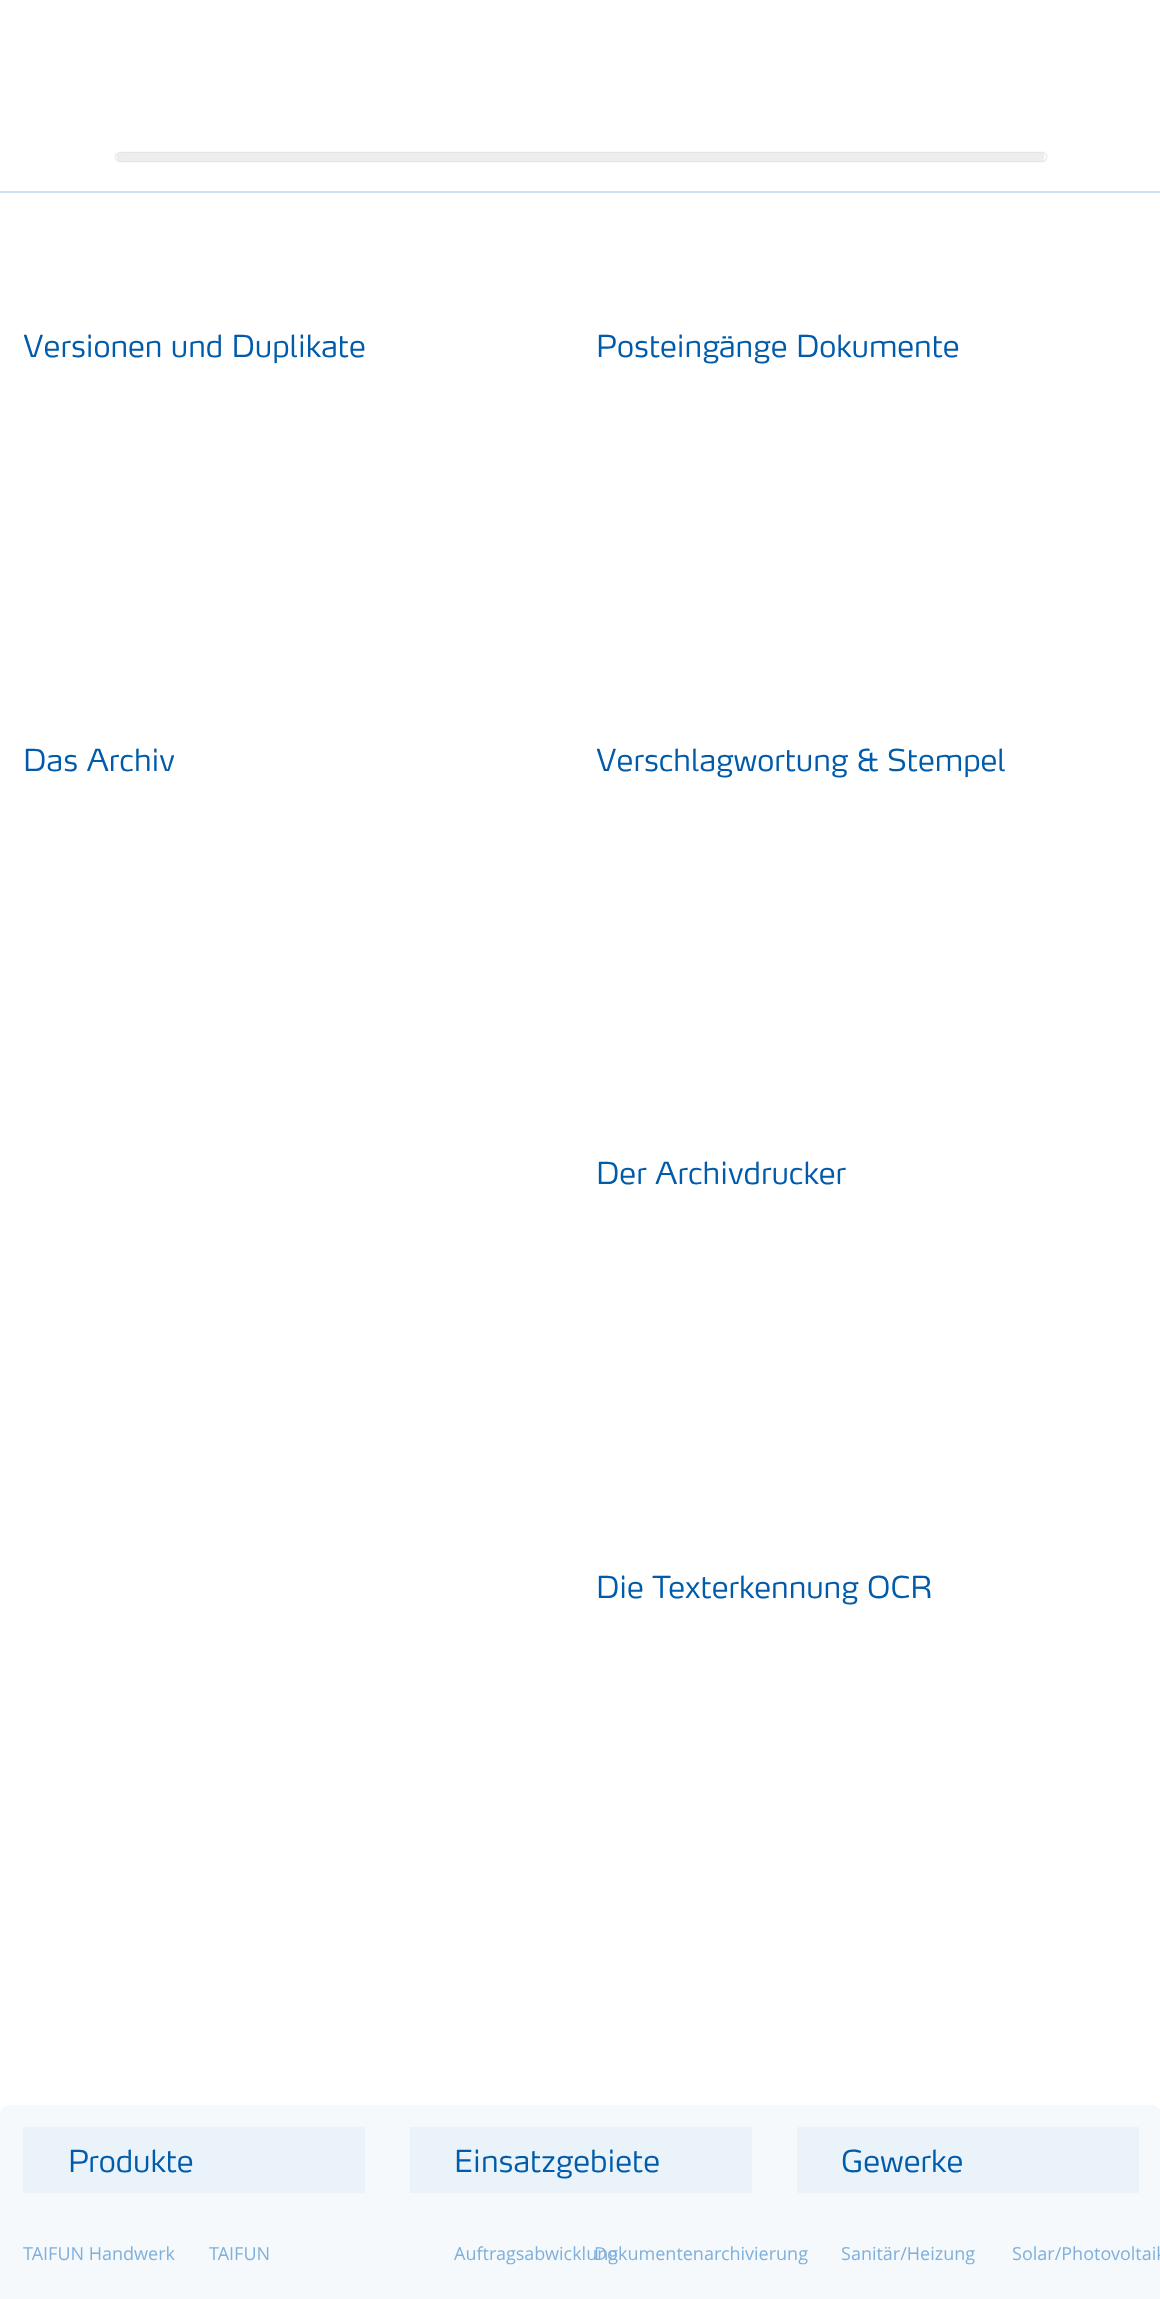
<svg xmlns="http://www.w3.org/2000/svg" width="1160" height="2299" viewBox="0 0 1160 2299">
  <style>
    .t1 { font: 300 30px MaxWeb; fill: #005bab; }
    .t2 { font: 18px Open Sans; fill: #7fb0db; }
  </style>
  <rect width="100%" height="100%" fill="#fff"/>
  <rect x="0" y="191" width="1160" height="2" fill="#cde1f2"/>
  <rect x="116" y="153" width="930" height="8" rx="4" fill="#b2b2b2" filter="blur(1px)"/>
  <rect x="116" y="153" width="930" height="8" rx="4" fill="#fff"/>
  <rect x="117" y="153" width="927" height="8" fill="#ededed"/>
  <text x="23" y="357" class="t1">Versionen und Duplikate</text>
  <text x="23" y="771" class="t1">Das Archiv</text>
  <text x="596" y="357" class="t1">Posteingänge Dokumente</text>
  <text x="596" y="771" class="t1">Verschlagwortung &amp; Stempel</text>
  <text x="596" y="1184" class="t1">Der Archivdrucker</text>
  <text x="596" y="1598" class="t1">Die Texterkennung OCR</text>
  <rect x="0" y="2105" width="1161" height="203" rx="9" fill="#f5f9fc"/>
  <rect x="23" y="2127" width="342" height="66" fill="#ebf3fa"/>
  <text x="68" y="2172" class="t1">Produkte</text>
  <text x="23" y="2260" class="t2">TAIFUN Handwerk</text>
  <text x="209" y="2260" class="t2">TAIFUN</text>
  <rect x="410" y="2127" width="342" height="66" fill="#ebf3fa"/>
  <text x="454" y="2172" class="t1">Einsatzgebiete</text>
  <text x="454" y="2260" class="t2">Auftragsabwicklung</text>
  <text x="594" y="2260" class="t2">Dokumentenarchivierung</text>
  <rect x="797" y="2127" width="342" height="66" fill="#ebf3fa"/>
  <text x="841" y="2172" class="t1">Gewerke</text>
  <text x="841" y="2260" class="t2">Sanitär/Heizung</text>
  <text x="1012" y="2260" class="t2">Solar/Photovoltaik</text>
</svg>
